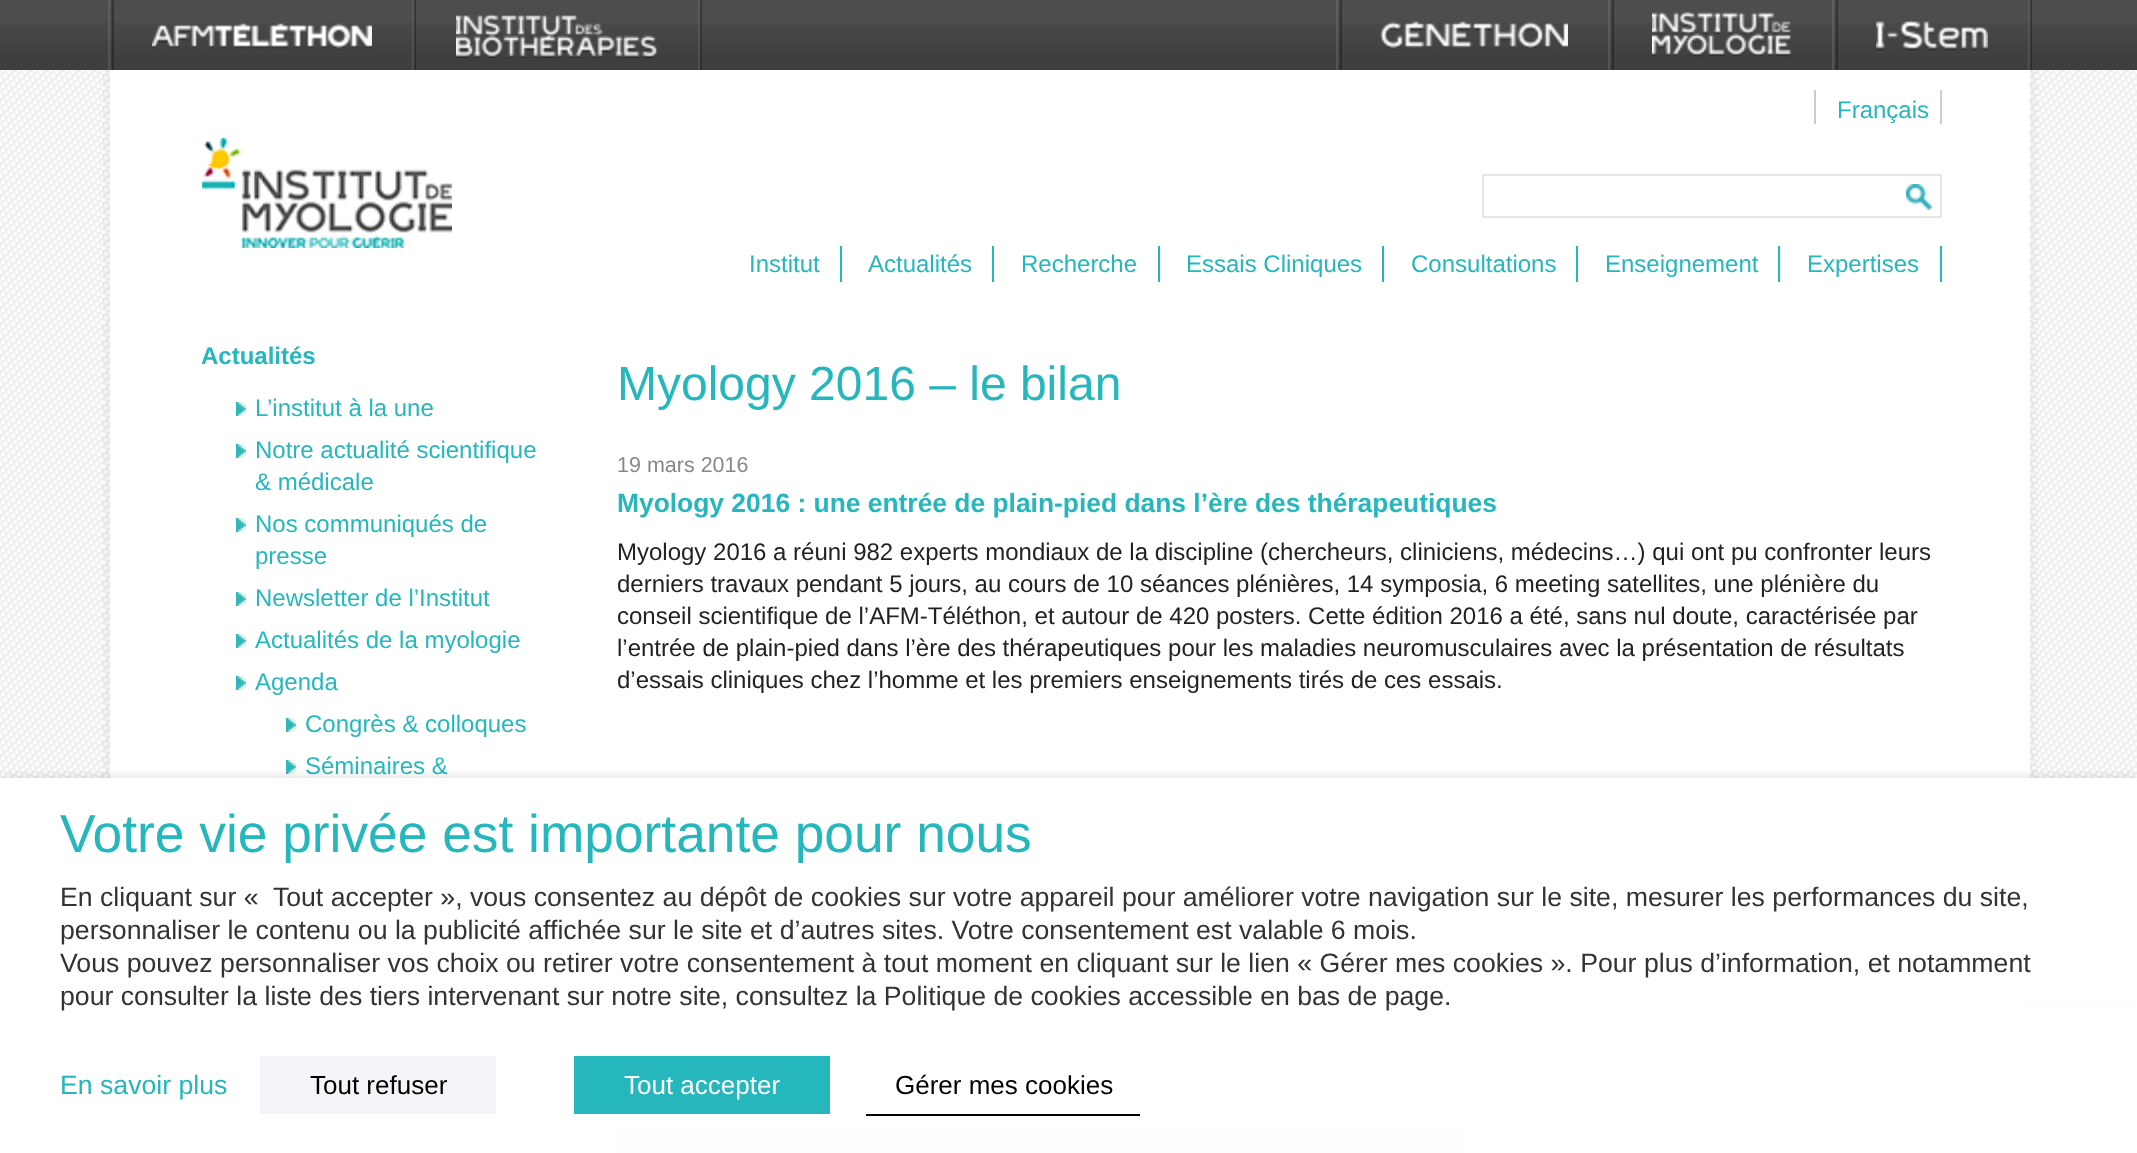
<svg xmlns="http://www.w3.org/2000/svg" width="2137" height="1153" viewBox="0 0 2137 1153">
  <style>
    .t1 { font: 24px Liberation Sans; fill: #25b7bc; }
    .t2 { font: bold 24px Liberation Sans; fill: #25b7bc; }
    .t3 { font: 48px Liberation Sans; fill: #25b7bc; }
    .t4 { font: 21.5px Liberation Sans; fill: #888; }
    .t5 { font: bold 26.4px Liberation Sans; fill: #25b7bc; }
    .t6 { font: 24px Liberation Sans; fill: #222; }
    .t7 { font: 53.3px Liberation Sans; fill: #25b7bc; }
    .t8 { font: 26.67px Liberation Sans; fill: #333; }
    .t9 { font: 26.67px Liberation Sans; fill: #25b7bc; }
    .t10 { font: 26px Liberation Sans; fill: #000; }
    .t11 { font: 26px Liberation Sans; fill: #fff; }
  </style>
  <defs>
    <clipPath id="clip1"><rect x="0" y="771" width="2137" height="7"/></clipPath>
    <clipPath id="clip2"><path d="M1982 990H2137V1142H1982ZM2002 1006H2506C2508 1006 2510 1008 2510 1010V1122C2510 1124 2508 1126 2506 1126H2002C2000 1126 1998 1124 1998 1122V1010C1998 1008 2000 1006 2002 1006Z" clip-rule="evenodd"/></clipPath>
  </defs>
  <rect width="100%" height="100%" fill="#fff"/>
  <image x="0" y="70" width="2137" height="1083" href="images/1.png"/>
  <rect x="0" y="0" width="2137" height="23" fill="#4d4d4d"/>
  <image x="0" y="23" width="2137" height="47" href="images/2.png"/>
  <image x="108" y="0" width="6" height="70" href="images/3.png"/>
  <image x="2028" y="0" width="4" height="70" href="images/4.png"/>
  <image x="412" y="0" width="4" height="70" href="images/4.png"/>
  <image x="152" y="23" width="220" height="27" href="images/5.png"/>
  <image x="698" y="0" width="4" height="70" href="images/4.png"/>
  <image x="456" y="14" width="202" height="44" href="images/6.png"/>
  <image x="1336" y="0" width="6" height="70" href="images/3.png"/>
  <image x="1380" y="21" width="188" height="29" href="images/7.png"/>
  <image x="1608" y="0" width="6" height="70" href="images/3.png"/>
  <image x="1652" y="12" width="140" height="45" href="images/8.png"/>
  <image x="1832" y="0" width="6" height="70" href="images/3.png"/>
  <image x="1876" y="20" width="112" height="31" href="images/9.png"/>
  <image x="102" y="70" width="1936" height="250" href="images/10.png"/>
  <image x="202" y="138" width="250" height="110" href="images/11.png"/>
  <rect x="1940" y="90" width="2" height="34" fill="#cdcdcd"/>
  <rect x="1814" y="90" width="2" height="34" fill="#cdcdcd"/>
  <text x="1837" y="118" class="t1">Français</text>
  <rect x="1483" y="175" width="458" height="42" fill="none" stroke="#e5e5e5" stroke-width="2"/>
  <image x="1906" y="184" width="26" height="26" href="images/12.png"/>
  <text x="749" y="272" class="t1">Institut</text>
  <rect x="840" y="246" width="2" height="36" fill="#25b7bc"/>
  <text x="868" y="272" class="t1">Actualités</text>
  <rect x="992" y="246" width="2" height="36" fill="#25b7bc"/>
  <text x="1021" y="272" class="t1">Recherche</text>
  <rect x="1158" y="246" width="2" height="36" fill="#25b7bc"/>
  <text x="1186" y="272" class="t1">Essais Cliniques</text>
  <rect x="1382" y="246" width="2" height="36" fill="#25b7bc"/>
  <text x="1411" y="272" class="t1">Consultations</text>
  <rect x="1576" y="246" width="2" height="36" fill="#25b7bc"/>
  <text x="1605" y="272" class="t1">Enseignement</text>
  <rect x="1778" y="246" width="2" height="36" fill="#25b7bc"/>
  <text x="1807" y="272" class="t1">Expertises</text>
  <rect x="1940" y="246" width="2" height="36" fill="#25b7bc"/>
  <image x="102" y="320" width="1936" height="833" href="images/13.png"/>
  <text x="201" y="364" class="t2">Actualités</text>
  <image x="236" y="402" width="10" height="14" href="images/14.png"/>
  <text x="255" y="416" class="t1">L’institut à la une</text>
  <image x="236" y="444" width="10" height="14" href="images/14.png"/>
  <text x="255" y="458" class="t1">Notre actualité scientifique</text>
  <text x="255" y="490" class="t1">&amp; médicale</text>
  <image x="236" y="518" width="10" height="14" href="images/14.png"/>
  <text x="255" y="532" class="t1">Nos communiqués de</text>
  <text x="255" y="564" class="t1">presse</text>
  <image x="236" y="592" width="10" height="14" href="images/14.png"/>
  <text x="255" y="606" class="t1">Newsletter de l’Institut</text>
  <image x="236" y="634" width="10" height="14" href="images/14.png"/>
  <text x="255" y="648" class="t1">Actualités de la myologie</text>
  <image x="236" y="676" width="10" height="14" href="images/14.png"/>
  <text x="255" y="690" class="t1">Agenda</text>
  <image x="286" y="718" width="10" height="14" href="images/14.png"/>
  <text x="305" y="732" class="t1">Congrès &amp; colloques</text>
  <image x="286" y="760" width="10" height="14" href="images/14.png"/>
  <text x="305" y="774" class="t1">Séminaires &amp;</text>
  <image x="236" y="844" width="10" height="14" href="images/14.png"/>
  <text x="617" y="400" class="t3">Myology 2016 – le bilan</text>
  <text x="617" y="472" class="t4">19 mars 2016</text>
  <text x="617" y="512" class="t5">Myology 2016 : une entrée de plain-pied dans l’ère des thérapeutiques</text>
  <text x="617" y="560" class="t6">Myology 2016 a réuni 982 experts mondiaux de la discipline (chercheurs, cliniciens, médecins…) qui ont pu confronter leurs</text>
  <text x="617" y="592" class="t6">derniers travaux pendant 5 jours, au cours de 10 séances plénières, 14 symposia, 6 meeting satellites, une plénière du</text>
  <text x="617" y="624" class="t6">conseil scientifique de l’AFM-Téléthon, et autour de 420 posters. Cette édition 2016 a été, sans nul doute, caractérisée par</text>
  <text x="617" y="656" class="t6">l’entrée de plain-pied dans l’ère des thérapeutiques pour les maladies neuromusculaires avec la présentation de résultats</text>
  <text x="617" y="688" class="t6">d’essais cliniques chez l’homme et les premiers enseignements tirés de ces essais.</text>
  <rect x="618" y="1126" width="850" height="27" fill="#e4e3e3"/>
  <g clip-path="url(#clip1)">
    <rect x="0" y="788" width="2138" height="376" fill="#00000080" filter="blur(10px)"/>
  </g>
  <g clip-path="url(#clip2)">
    <rect x="1998" y="1006" width="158" height="120" rx="4" fill="#808080" filter="blur(5px)"/>
  </g>
  <rect x="0" y="778" width="2137" height="375" fill="#fffffff7"/>
  <text x="60" y="852" class="t7">Votre vie privée est importante pour nous</text>
  <text x="60" y="906" class="t8" xml:space="preserve">En cliquant sur «  Tout accepter », vous consentez au dépôt de cookies sur votre appareil pour améliorer votre navigation sur le site, mesurer les performances du site,</text>
  <text x="60" y="939" class="t8">personnaliser le contenu ou la publicité affichée sur le site et d’autres sites. Votre consentement est valable 6 mois.</text>
  <text x="60" y="972" class="t8">Vous pouvez personnaliser vos choix ou retirer votre consentement à tout moment en cliquant sur le lien « Gérer mes cookies ». Pour plus d’information, et notamment</text>
  <text x="60" y="1005" class="t8">pour consulter la liste des tiers intervenant sur notre site, consultez la Politique de cookies accessible en bas de page.</text>
  <text x="60" y="1094" class="t9">En savoir plus</text>
  <rect x="260" y="1056" width="236" height="58" fill="#f4f4f9"/>
  <text x="310" y="1094" class="t10">Tout refuser</text>
  <rect x="574" y="1056" width="256" height="58" fill="#25b7bc"/>
  <text x="624" y="1094" class="t11">Tout accepter</text>
  <rect x="866" y="1114" width="274" height="2" fill="#000"/>
  <text x="895" y="1094" class="t10">Gérer mes cookies</text>
</svg>
